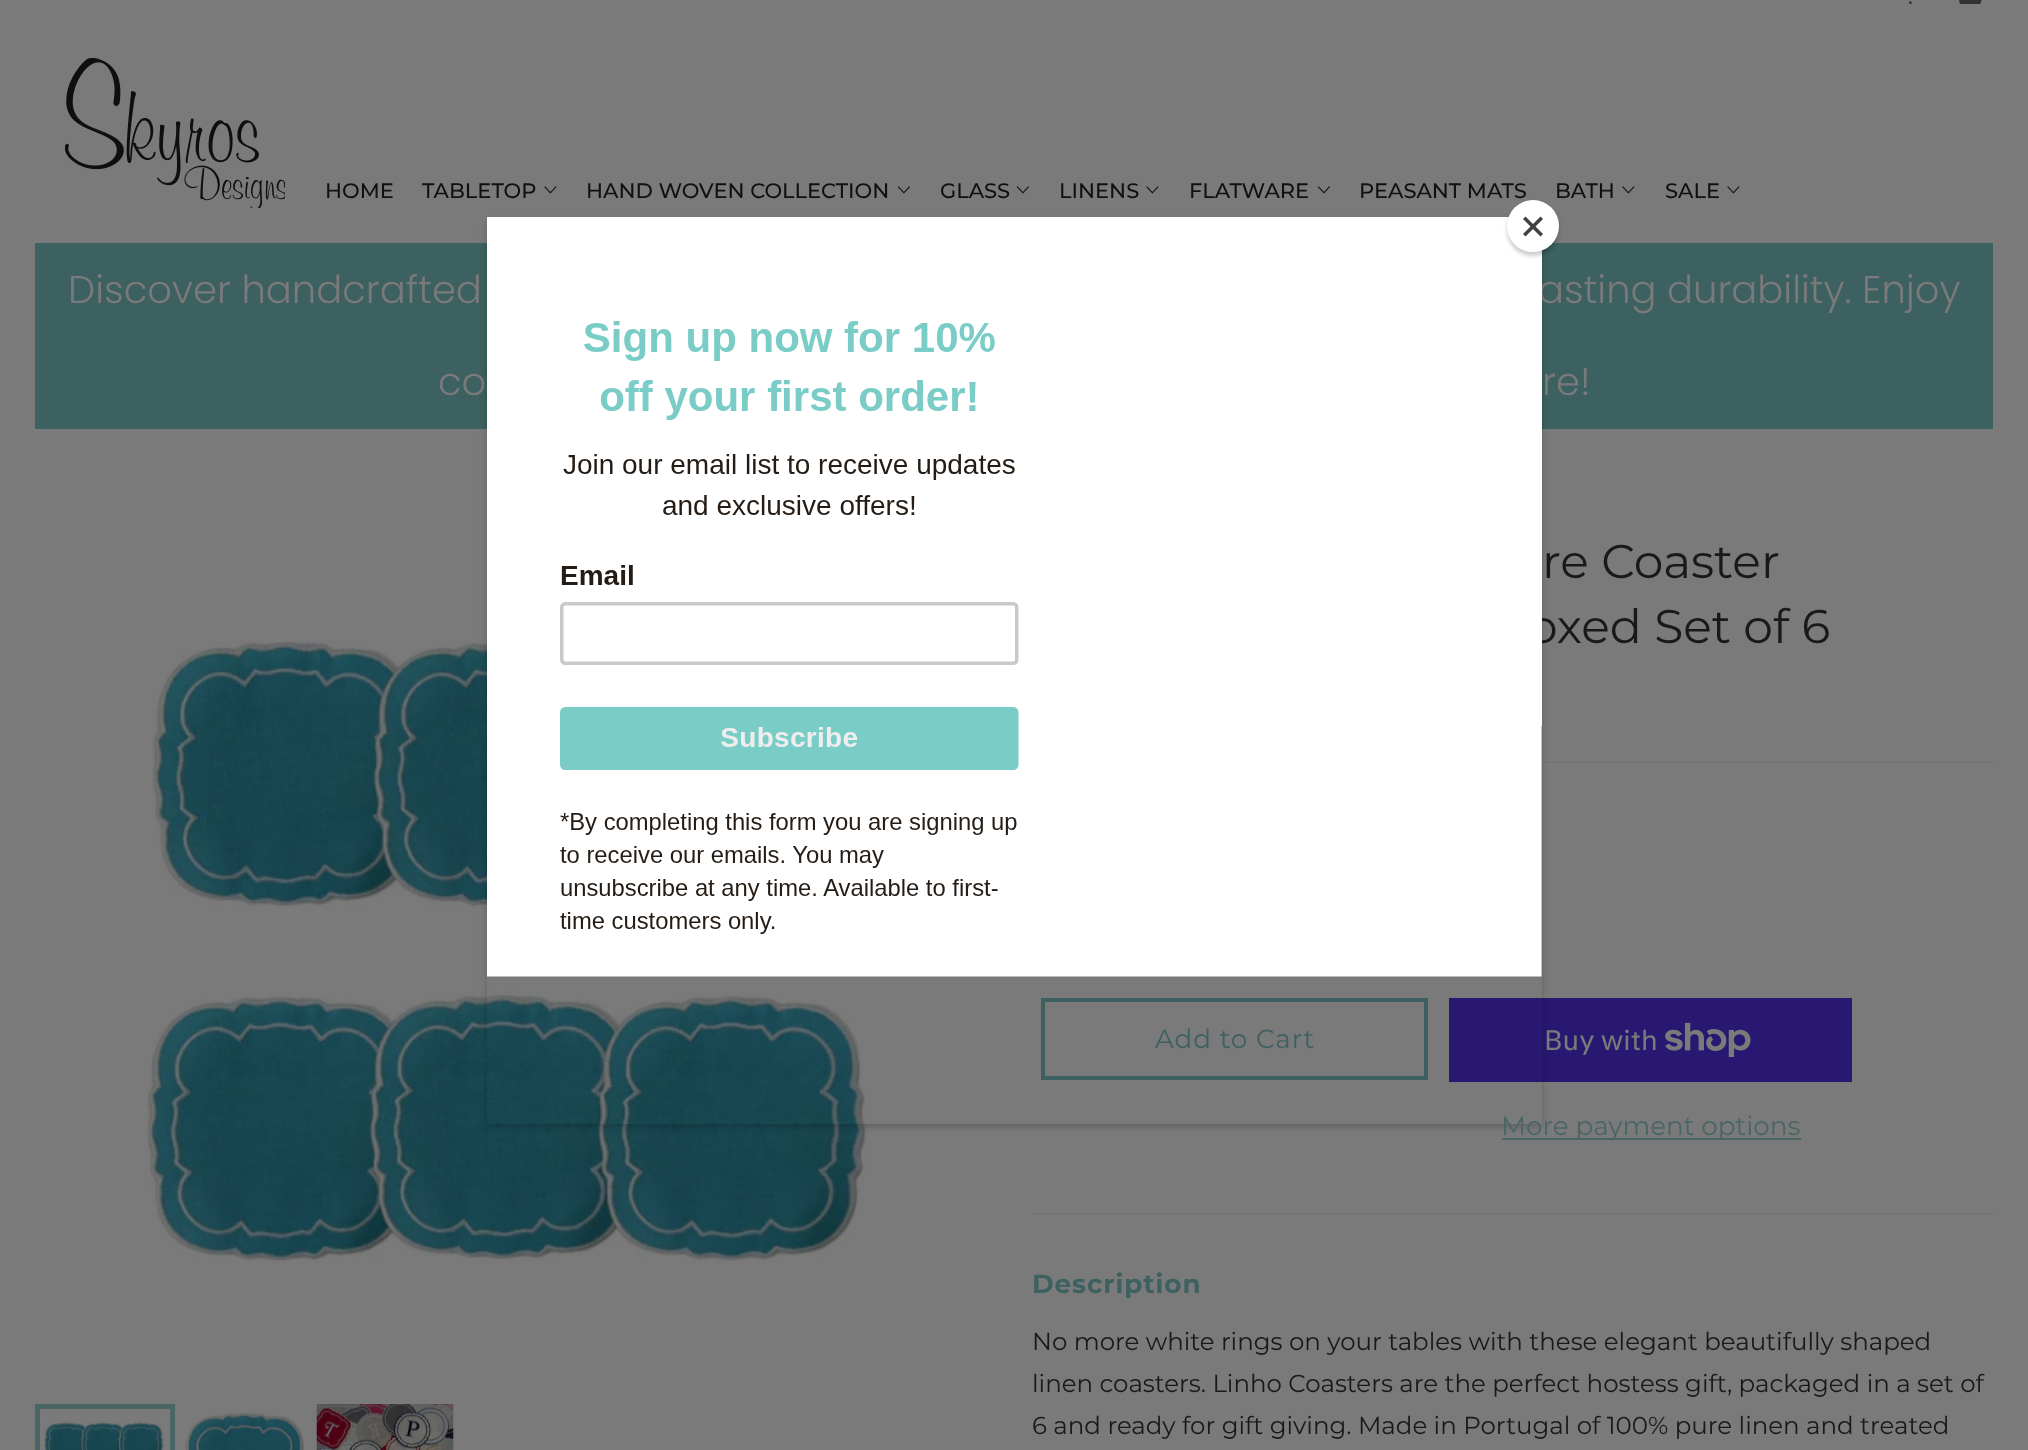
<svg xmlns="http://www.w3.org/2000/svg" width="2028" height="1450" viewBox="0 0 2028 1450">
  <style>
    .t1 { font: 24.5px Liberation Sans; fill: #313131; }
    .t2 { font: 500 21px Montserrat; fill: #101010; }
    .t3 { font: 300 38.5px Poppins; fill: #7a7a7a; }
    .t4 { font: 47.25px Montserrat; fill: #191919; }
    .t5 { font: 26.25px Montserrat; letter-spacing: 0.9px; fill: #3c6160; }
    .t6 { font: 28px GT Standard; fill: #7a7a7a; }
    .t7 { font: 26.25px Montserrat; fill: #496665; }
    .t8 { font: bold 26.25px Montserrat; letter-spacing: 0.9px; fill: #3c6160; }
    .t9 { font: 24.5px Montserrat; fill: #191919; }
  </style>
  <defs>
    <clipPath id="clip1"><path d="M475 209H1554V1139H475ZM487 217H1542V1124H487Z" clip-rule="evenodd"/></clipPath>
  </defs>
  <rect width="100%" height="100%" fill="#7a7a7a"/>
  <text x="1907" y="4" class="t1">.</text>
  <image x="1959" y="0" width="23" height="4" href="images/1.png"/>
  <image x="65" y="58" width="220" height="150" href="images/2.png"/>
  <text x="325" y="198" class="t2">HOME</text>
  <text x="422" y="198" class="t2">TABLETOP</text>
  <image x="544" y="186" width="13" height="8" href="images/3.png"/>
  <text x="586" y="198" class="t2">HAND WOVEN COLLECTION</text>
  <image x="897" y="186" width="13" height="8" href="images/4.png"/>
  <text x="940" y="198" class="t2">GLASS</text>
  <image x="1016" y="186" width="13" height="8" href="images/4.png"/>
  <text x="1059" y="198" class="t2">LINENS</text>
  <image x="1146" y="186" width="13" height="8" href="images/3.png"/>
  <text x="1189" y="198" class="t2">FLATWARE</text>
  <image x="1317" y="186" width="13" height="8" href="images/4.png"/>
  <text x="1359" y="198" class="t2">PEASANT MATS</text>
  <text x="1555" y="198" class="t2">BATH</text>
  <image x="1622" y="186" width="13" height="8" href="images/3.png"/>
  <text x="1665" y="198" class="t2">SALE</text>
  <image x="1727" y="186" width="13" height="8" href="images/3.png"/>
  <rect x="35" y="243" width="1958" height="186" fill="#3c6160"/>
  <text x="68" y="303" class="t3">Discover handcrafted</text>
  <text x="1538" y="303" class="t3">asting durability. Enjoy</text>
  <text x="438" y="395" class="t3">co</text>
  <text x="1542" y="395" class="t3">re!</text>
  <image x="146" y="641" width="721" height="623" href="images/6.png"/>
  <rect x="1541" y="761" width="452" height="2" fill="#757575"/>
  <rect x="1043" y="1000" width="383" height="78" fill="none" stroke="#3c6160" stroke-width="4"/>
  <rect x="1449" y="998" width="403" height="84" fill="#281871"/>
  <rect x="1502" y="1138" width="299" height="2" fill="#496665"/>
  <g clip-path="url(#clip1)">
    <rect x="487" y="221" width="1055" height="906" fill="#00000033" filter="blur(3.5px)"/>
  </g>
  <text x="1528" y="643" class="t4">oxed Set of 6</text>
  <image x="487" y="217" width="1055" height="760" href="images/5.png"/>
  <rect x="1507" y="203" width="52" height="53" rx="26" fill="#00000033" filter="blur(2px)"/>
  <circle cx="1533" cy="226" r="26" fill="#fff"/>
  <path d="M1540.5 216.5L1543 219L1525.5 236.5L1523 234Z" fill="#414141"/>
  <path d="M1523 219L1525.5 216.5L1543 234L1540.5 236.5Z" fill="#414141"/>
  <image x="42" y="1420" width="126" height="30" href="images/7.png"/>
  <rect x="37.5" y="1406.5" width="135" height="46" fill="none" stroke="#496665" stroke-width="5"/>
  <image x="185" y="1411" width="119" height="39" href="images/8.png"/>
  <image x="316" y="1404" width="138" height="46" href="images/9.png"/>
  <text x="1542" y="578" class="t4">re Coaster</text>
  <text x="1155" y="1048" class="t5">Add to Cart</text>
  <text x="1544" y="1050" class="t6">Buy with</text>
  <image x="1665" y="1022" width="86" height="35" href="images/10.png"/>
  <text x="1501" y="1135" class="t7">More payment options</text>
  <rect x="1033" y="1213" width="960" height="2" fill="#757575"/>
  <text x="1032" y="1293" class="t8">Description</text>
  <text x="1032" y="1350" class="t9">No more white rings on your tables with these elegant beautifully shaped</text>
  <text x="1032" y="1392" class="t9">linen coasters. Linho Coasters are the perfect hostess gift, packaged in a set of</text>
  <text x="1032" y="1434" class="t9">6 and ready for gift giving. Made in Portugal of 100% pure linen and treated</text>
</svg>
